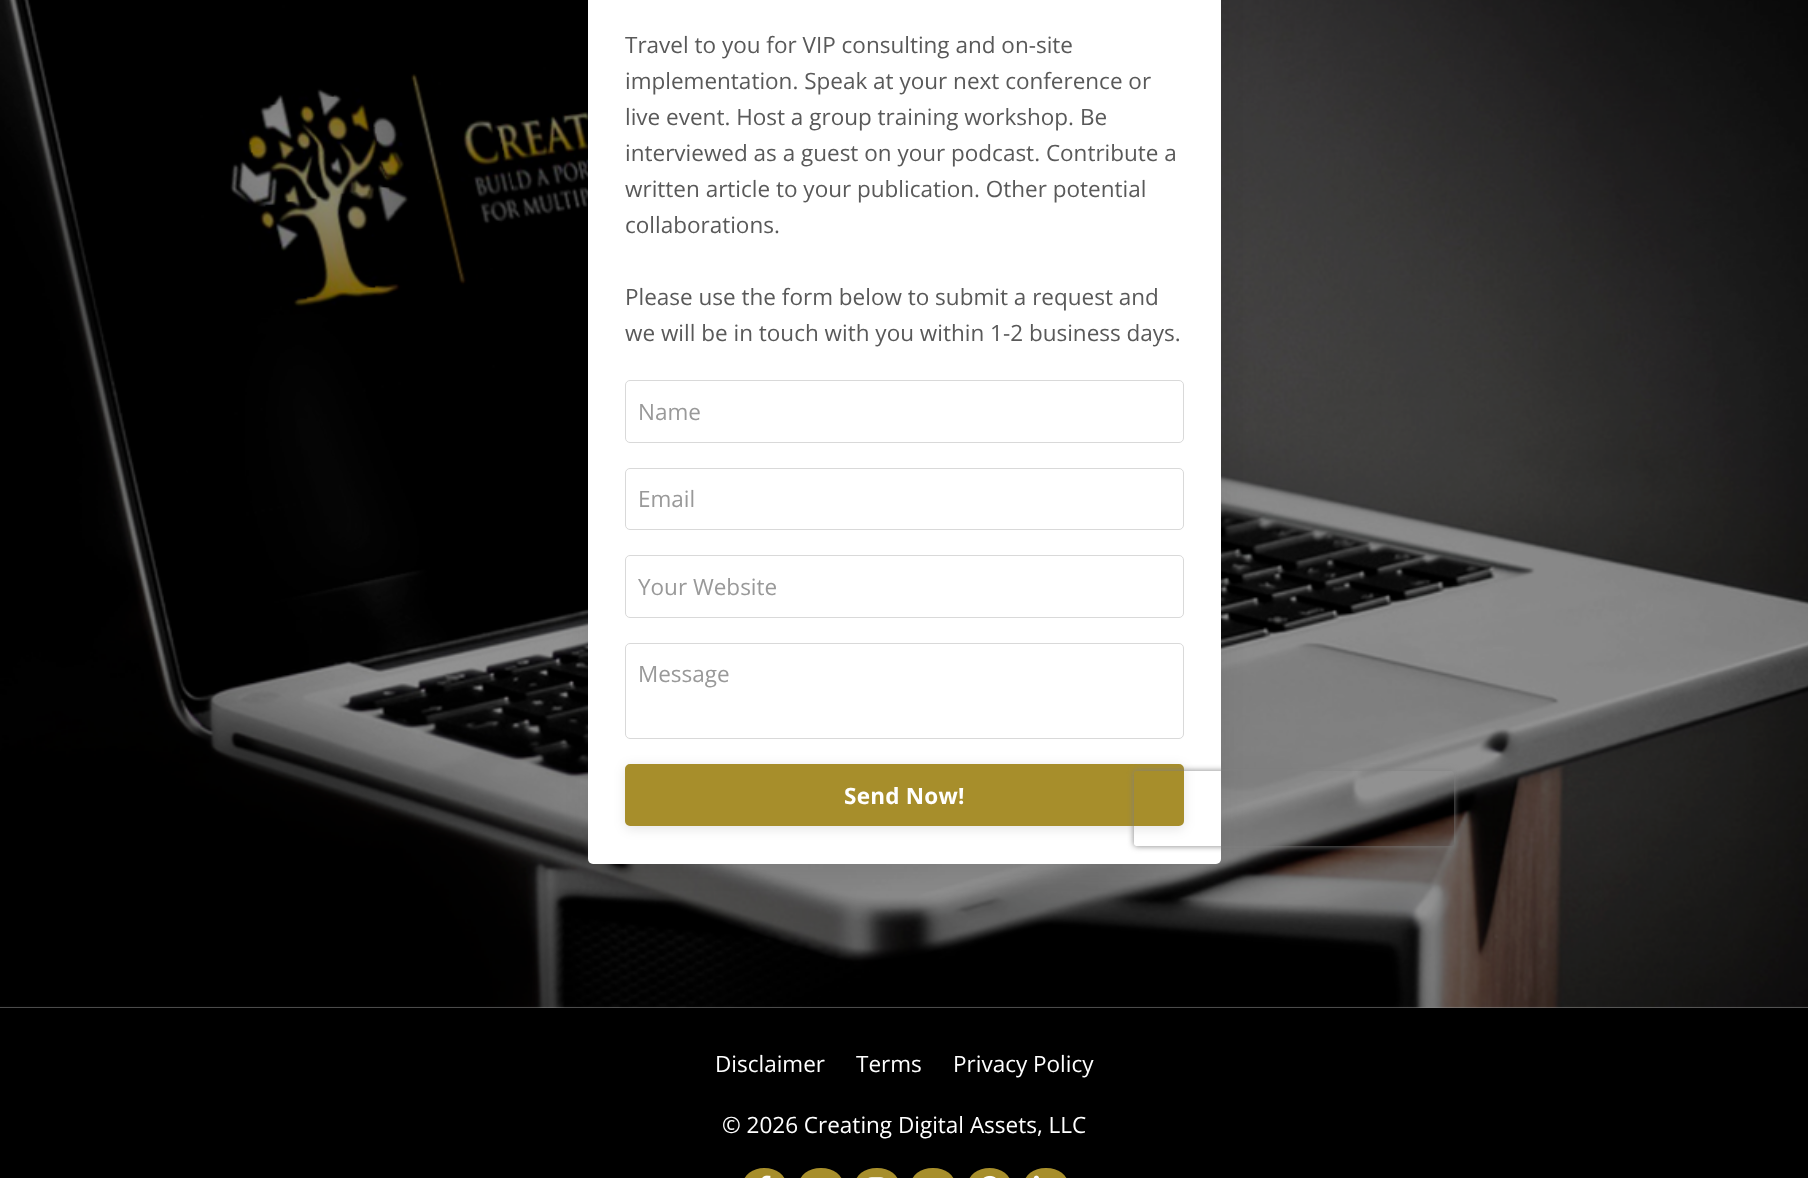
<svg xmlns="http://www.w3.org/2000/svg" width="1808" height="1178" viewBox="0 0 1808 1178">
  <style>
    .t1 { font: 22.5px Open Sans; fill: #595959; }
    .t2 { font: 22.5px Open Sans; fill: #999; }
    .t3 { font: bold 22.5px Open Sans; letter-spacing: 0.25px; fill: #fff; }
    .t4 { font: 22.5px Open Sans; fill: #fff; }
  </style>
  <defs>
    <clipPath id="clip1"><path d="M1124 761H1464V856H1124ZM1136.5 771H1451.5C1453 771 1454 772 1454 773.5V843.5C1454 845 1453 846 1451.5 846H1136.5C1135 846 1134 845 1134 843.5V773.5C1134 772 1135 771 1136.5 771Z" clip-rule="evenodd"/></clipPath>
  </defs>
  <rect width="100%" height="100%" fill="#919191"/>
  <image x="0" y="0" width="1808" height="1008" href="images/1.png"/>
  <rect x="588" y="-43" width="633" height="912" rx="5" fill="#00000012" filter="blur(12.5px)"/>
  <rect x="588" y="-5" width="633" height="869" rx="5" fill="#fff"/>
  <text x="625" y="53" class="t1">Travel to you for VIP consulting and on-site</text>
  <text x="625" y="89" class="t1">implementation. Speak at your next conference or</text>
  <text x="625" y="125" class="t1">live event. Host a group training workshop. Be</text>
  <text x="625" y="161" class="t1">interviewed as a guest on your podcast. Contribute a</text>
  <text x="625" y="197" class="t1">written article to your publication. Other potential</text>
  <text x="625" y="233" class="t1">collaborations.</text>
  <text x="625" y="305" class="t1">Please use the form below to submit a request and</text>
  <text x="625" y="341" class="t1">we will be in touch with you within 1-2 business days.</text>
  <rect x="625.5" y="380.5" width="558" height="62" rx="4.5" fill="none" stroke="#d9d9d9"/>
  <text x="638" y="420" class="t2">Name</text>
  <rect x="625.5" y="468.5" width="558" height="61" rx="4.5" fill="none" stroke="#d9d9d9"/>
  <text x="638" y="507" class="t2">Email</text>
  <rect x="625.5" y="555.5" width="558" height="62" rx="4.5" fill="none" stroke="#d9d9d9"/>
  <text x="638" y="595" class="t2">Your Website</text>
  <rect x="625.5" y="643.5" width="558" height="95" rx="4.5" fill="none" stroke="#d9d9d9"/>
  <text x="638" y="682" class="t2">Message</text>
  <rect x="625" y="766" width="559" height="63" rx="5" fill="#0000001a" filter="blur(6px)"/>
  <rect x="626.5" y="765.5" width="556" height="59" rx="3.5" fill="#a78e2b" stroke="#a78e2b" stroke-width="3"/>
  <text x="844" y="804" class="t3">Send Now!</text>
  <g clip-path="url(#clip1)">
    <rect x="1134" y="771" width="320" height="75" rx="2.5" fill="#808080" filter="blur(3px)"/>
  </g>
  <rect x="0" y="1008" width="1808" height="170" fill="#000"/>
  <text x="715" y="1072" class="t4">Disclaimer</text>
  <text x="856" y="1072" class="t4">Terms</text>
  <text x="953" y="1072" class="t4">Privacy Policy</text>
  <text x="722" y="1133" class="t4">© 2026 Creating Digital Assets, LLC</text>
  <rect x="743" y="1168" width="43" height="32" rx="21.5" fill="#a78e2b"/>
  <image x="762" y="1175" width="9" height="3" href="images/2.png"/>
  <rect x="799" y="1168" width="44" height="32" rx="21.5" fill="#a78e2b"/>
  <rect x="855" y="1168" width="44" height="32" rx="21.5" fill="#a78e2b"/>
  <image x="868" y="1177" width="16" height="1" href="images/3.png"/>
  <rect x="911" y="1168" width="44" height="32" rx="21.5" fill="#a78e2b"/>
  <rect x="968" y="1168" width="43" height="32" rx="21.5" fill="#a78e2b"/>
  <image x="983" y="1175" width="13" height="3" href="images/4.png"/>
  <rect x="1024" y="1168" width="44" height="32" rx="21.5" fill="#a78e2b"/>
  <image x="1033" y="1175" width="6" height="3" href="images/5.png"/>
</svg>
